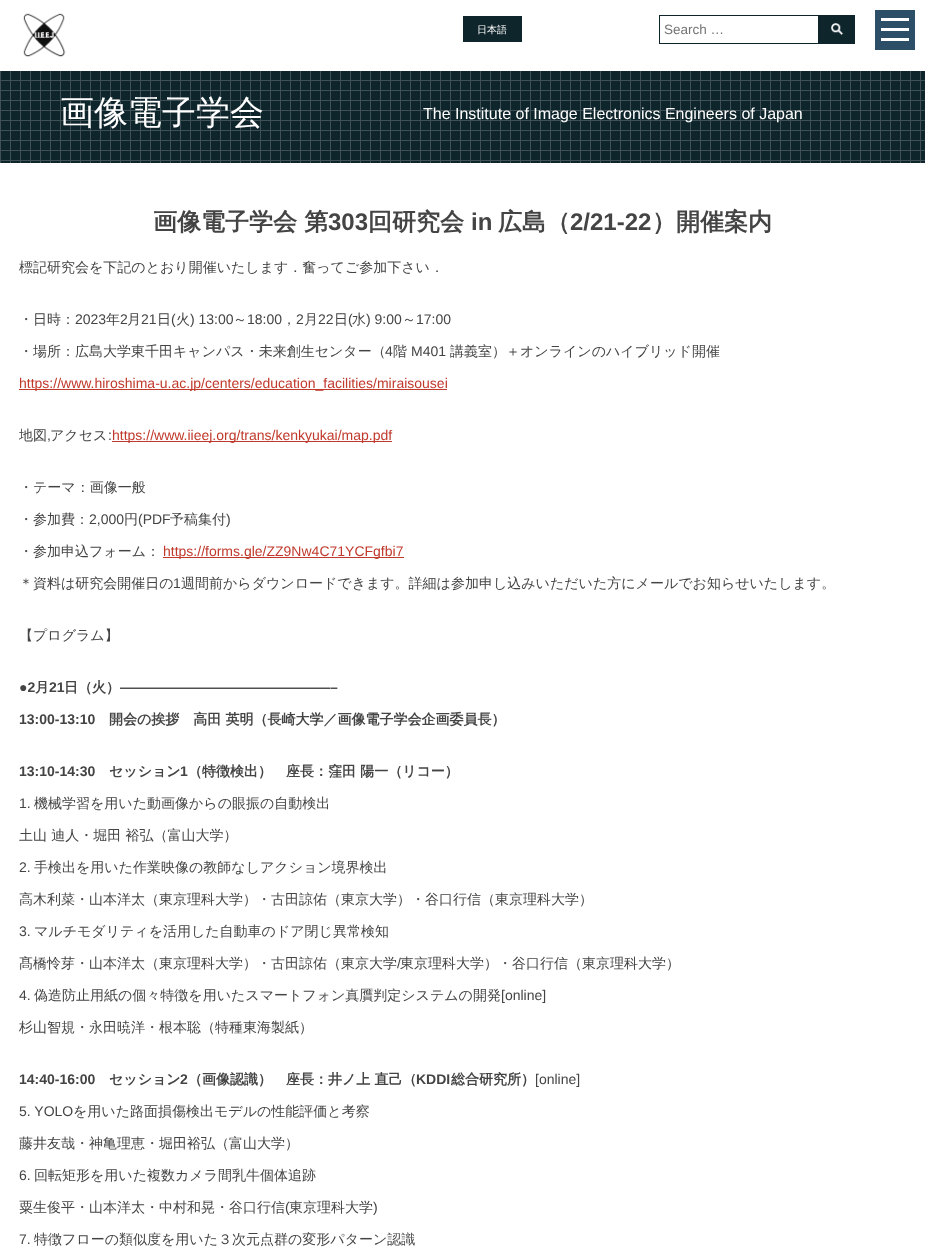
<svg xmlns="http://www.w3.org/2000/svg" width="925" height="1258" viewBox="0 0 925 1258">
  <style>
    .t1 { font: 500 10px WenQuanYi Zen Hei; fill: #fff; }
    .t2 { font: 13.5px Liberation Sans; fill: #757575; }
    .t3 { font: 500 34px WenQuanYi Zen Hei; fill: #fff; }
    .t4 { font: 16px Liberation Sans; fill: #fff; }
    .t5 { font: bold 24px WenQuanYi Zen Hei; fill: #444; }
    .t6 { font: bold 24px Liberation Sans; fill: #444; }
    .t7 { font: 500 14px WenQuanYi Zen Hei; fill: #444; }
    .t8 { font: 14px Liberation Sans; fill: #444; }
    .t9 { font: 14px Liberation Sans; fill: #c0392b; }
    .t10 { font: bold 14px Liberation Sans; fill: #444; }
    .t11 { font: bold 14px WenQuanYi Zen Hei; fill: #444; }
  </style>
  <rect width="100%" height="100%" fill="#0f252c"/>
  <image x="0" y="71" width="925" height="92" href="images/1.png"/>
  <rect x="0" y="0" width="925" height="71" fill="#fff"/>
  <image x="23" y="13" width="43" height="44" href="images/2.png"/>
  <rect x="463" y="16" width="59" height="26" fill="#0f252c"/>
  <text x="477" y="33" class="t1">日本語</text>
  <rect x="659.5" y="15.5" width="159" height="28" fill="none" stroke="#0f252c"/>
  <text x="664" y="34" class="t2">Search …</text>
  <rect x="819" y="15" width="36" height="29" fill="#0f252c"/>
  <image x="831" y="23" width="12" height="12" href="images/3.png"/>
  <text x="60" y="124" class="t3">画像電子学会</text>
  <text x="423" y="119" class="t4">The Institute of Image Electronics Engineers of Japan</text>
  <rect x="0" y="163" width="925" height="1095" fill="#fff"/>
  <text x="153" y="230" class="t5">画像電子学会 第</text>
  <text x="328" y="230" class="t6">303</text>
  <text x="368" y="230" class="t5">回研究会</text>
  <text x="471" y="230" class="t6">in</text>
  <text x="498" y="230" class="t5">広島（</text>
  <text x="570" y="230" class="t6">2/21-22</text>
  <text x="652" y="230" class="t5">）開催案内</text>
  <text x="19" y="272" class="t7">標記研究会を下記のとおり開催いたします．奮ってご参加下さい．</text>
  <text x="19" y="324" class="t7">・日時：</text>
  <text x="75" y="324" class="t8">2023</text>
  <text x="106" y="324" class="t7">年</text>
  <text x="120" y="324" class="t8">2</text>
  <text x="127" y="324" class="t7">月</text>
  <text x="141" y="324" class="t8">21</text>
  <text x="157" y="324" class="t7">日</text>
  <text x="171" y="324" class="t8">(</text>
  <text x="176" y="324" class="t7">火</text>
  <text x="190" y="324" class="t8">) 13:00</text>
  <text x="233" y="324" class="t7">～</text>
  <text x="247" y="324" class="t8">18:00</text>
  <text x="296" y="324" class="t8">2</text>
  <text x="304" y="324" class="t7">月</text>
  <text x="318" y="324" class="t8">22</text>
  <text x="334" y="324" class="t7">日</text>
  <text x="348" y="324" class="t8">(</text>
  <text x="352" y="324" class="t7">水</text>
  <text x="366" y="324" class="t8">) 9:00</text>
  <text x="402" y="324" class="t7">～</text>
  <text x="416" y="324" class="t8">17:00</text>
  <text x="282" y="324" class="t7">，</text>
  <text x="19" y="356" class="t7">・場所：広島大学東千田キャンパス・未来創生センター（</text>
  <text x="385" y="356" class="t8">4</text>
  <text x="393" y="356" class="t7">階</text>
  <text x="411" y="356" class="t8">M401</text>
  <text x="450" y="356" class="t7">講義室）＋オンラインのハイブリッド開催</text>
  <rect x="19" y="389" width="428" height="1" fill="#c0392b"/>
  <text x="19" y="388" class="t9">https://www.hiroshima-u.ac.jp/centers/education_facilities/miraisousei</text>
  <text x="19" y="440" class="t7">地図</text>
  <text x="47" y="440" class="t8">,</text>
  <text x="50" y="440" class="t7">アクセス</text>
  <text x="108" y="440" class="t8">:</text>
  <rect x="112" y="441" width="280" height="1" fill="#c0392b"/>
  <text x="112" y="440" class="t9">https://www.iieej.org/trans/kenkyukai/map.pdf</text>
  <text x="19" y="492" class="t7">・テーマ：画像一般</text>
  <text x="19" y="524" class="t7">・参加費：</text>
  <text x="89" y="524" class="t8">2,000</text>
  <text x="124" y="524" class="t7">円</text>
  <text x="138" y="524" class="t8">(PDF</text>
  <text x="170" y="524" class="t7">予稿集付</text>
  <text x="226" y="524" class="t8">)</text>
  <text x="19" y="556" class="t7">・参加申込フォーム：</text>
  <rect x="163" y="557" width="241" height="1" fill="#c0392b"/>
  <text x="163" y="556" class="t9">https://forms.gle/ZZ9Nw4C71YCFgfbi7</text>
  <text x="19" y="588" class="t7">＊資料は研究会開催日の</text>
  <text x="173" y="588" class="t8">1</text>
  <text x="181" y="588" class="t7">週間前からダウンロードできます。詳細は参加申し込みいただいた方にメールでお知らせいたします。</text>
  <text x="19" y="640" class="t7">【プログラム】</text>
  <text x="19" y="692" class="t10">●2</text>
  <text x="35" y="692" class="t11">月</text>
  <text x="49" y="692" class="t10">21</text>
  <text x="64" y="692" class="t11">日（火）</text>
  <text x="120" y="692" class="t10">———————————————–</text>
  <text x="19" y="724" class="t10">13:00-13:10</text>
  <text x="109" y="724" class="t11">開会の挨拶　高田 英明（長崎大学／画像電子学会企画委員長）</text>
  <text x="19" y="776" class="t10">13:10-14:30</text>
  <text x="109" y="776" class="t11">セッション</text>
  <text x="180" y="776" class="t10">1</text>
  <text x="188" y="776" class="t11">（特徴検出）　座長：窪田 陽一（リコー）</text>
  <text x="19" y="808" class="t8">1.</text>
  <text x="34" y="808" class="t7">機械学習を用いた動画像からの眼振の自動検出</text>
  <text x="19" y="840" class="t7">土山 迪人・堀田 裕弘（富山大学）</text>
  <text x="19" y="872" class="t8">2.</text>
  <text x="34" y="872" class="t7">手検出を用いた作業映像の教師なしアクション境界検出</text>
  <text x="19" y="904" class="t7">高木利菜・山本洋太（東京理科大学）・古田諒佑（東京大学）・谷口行信（東京理科大学）</text>
  <text x="19" y="936" class="t8">3.</text>
  <text x="34" y="936" class="t7">マルチモダリティを活用した自動車のドア閉じ異常検知</text>
  <text x="19" y="968" class="t7">髙橋怜芽・山本洋太（東京理科大学）・古田諒佑（東京大学</text>
  <text x="397" y="968" class="t8">/</text>
  <text x="400" y="968" class="t7">東京理科大学）・谷口行信（東京理科大学）</text>
  <text x="19" y="1000" class="t8">4.</text>
  <text x="34" y="1000" class="t7">偽造防止用紙の個々特徴を用いたスマートフォン真贋判定システムの開発</text>
  <text x="501" y="1000" class="t8">[online]</text>
  <text x="19" y="1032" class="t7">杉山智規・永田暁洋・根本聡（特種東海製紙）</text>
  <text x="19" y="1084" class="t10">14:40-16:00</text>
  <text x="109" y="1084" class="t11">セッション</text>
  <text x="180" y="1084" class="t10">2</text>
  <text x="188" y="1084" class="t11">（画像認識）　座長：井ノ上 直己（</text>
  <text x="416" y="1084" class="t10">KDDI</text>
  <text x="451" y="1084" class="t11">総合研究所）</text>
  <text x="535" y="1084" class="t8">[online]</text>
  <text x="19" y="1116" class="t8">5. YOLO</text>
  <text x="73" y="1116" class="t7">を用いた路面損傷検出モデルの性能評価と考察</text>
  <text x="19" y="1148" class="t7">藤井友哉・神亀理恵・堀田裕弘（富山大学）</text>
  <text x="19" y="1180" class="t8">6.</text>
  <text x="34" y="1180" class="t7">回転矩形を用いた複数カメラ間乳牛個体追跡</text>
  <text x="19" y="1212" class="t7">粟生俊平・山本洋太・中村和晃・谷口行信</text>
  <text x="285" y="1212" class="t8">(</text>
  <text x="289" y="1212" class="t7">東京理科大学</text>
  <text x="373" y="1212" class="t8">)</text>
  <text x="19" y="1244" class="t8">7.</text>
  <text x="34" y="1244" class="t7">特徴フローの類似度を用いた３次元点群の変形パターン認識</text>
  <rect x="875" y="10" width="40" height="40" fill="#2c4e66"/>
  <rect x="881" y="28" width="28" height="3" fill="#fff"/>
  <rect x="881" y="18" width="28" height="3" fill="#fff"/>
  <rect x="881" y="38" width="28" height="3" fill="#fff"/>
</svg>
